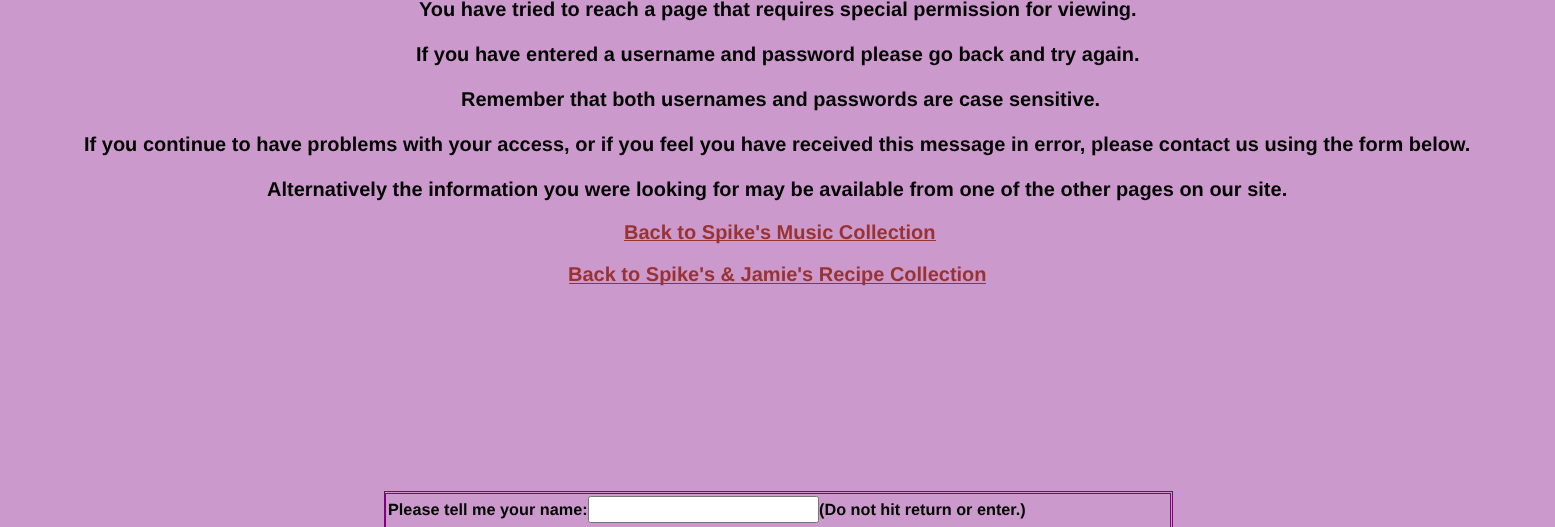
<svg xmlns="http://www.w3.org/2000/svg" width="1555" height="527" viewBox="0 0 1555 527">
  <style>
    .t1 { font: bold 20px Liberation Sans; fill: #000; }
    .t2 { font: bold 20px Liberation Sans; fill: #933; }
    .t3 { font: bold 16.25px Liberation Sans; fill: #000; }
  </style>
  <rect width="100%" height="100%" fill="#c9c"/>
  <text x="419" y="16" class="t1">You have tried to reach a page that requires special permission for viewing.</text>
  <text x="416" y="61" class="t1">If you have entered a username and password please go back and try again.</text>
  <text x="461" y="106" class="t1">Remember that both usernames and passwords are case sensitive.</text>
  <text x="84" y="151" class="t1">If you continue to have problems with your access, or if you feel you have received this message in error, please contact us using the form below.</text>
  <text x="267" y="196" class="t1">Alternatively the information you were looking for may be available from one of the other pages on our site.</text>
  <rect x="624" y="240" width="312" height="1" fill="#933"/>
  <text x="624" y="239" class="t2">Back to Spike's Music Collection</text>
  <rect x="569" y="283" width="417" height="1" fill="#933"/>
  <text x="568" y="281" class="t2">Back to Spike's &amp; Jamie's Recipe Collection</text>
  <rect x="384.5" y="491.5" width="788" height="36" fill="none" stroke="#800080"/>
  <rect x="385.5" y="493.5" width="785" height="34" fill="none" stroke="#800080"/>
  <text x="388" y="515" class="t3">Please tell me your name:</text>
  <rect x="588.5" y="496.5" width="230" height="26" rx="2" fill="#fff" stroke="#767676"/>
  <text x="819" y="515" class="t3">(Do not hit return or enter.)</text>
</svg>
